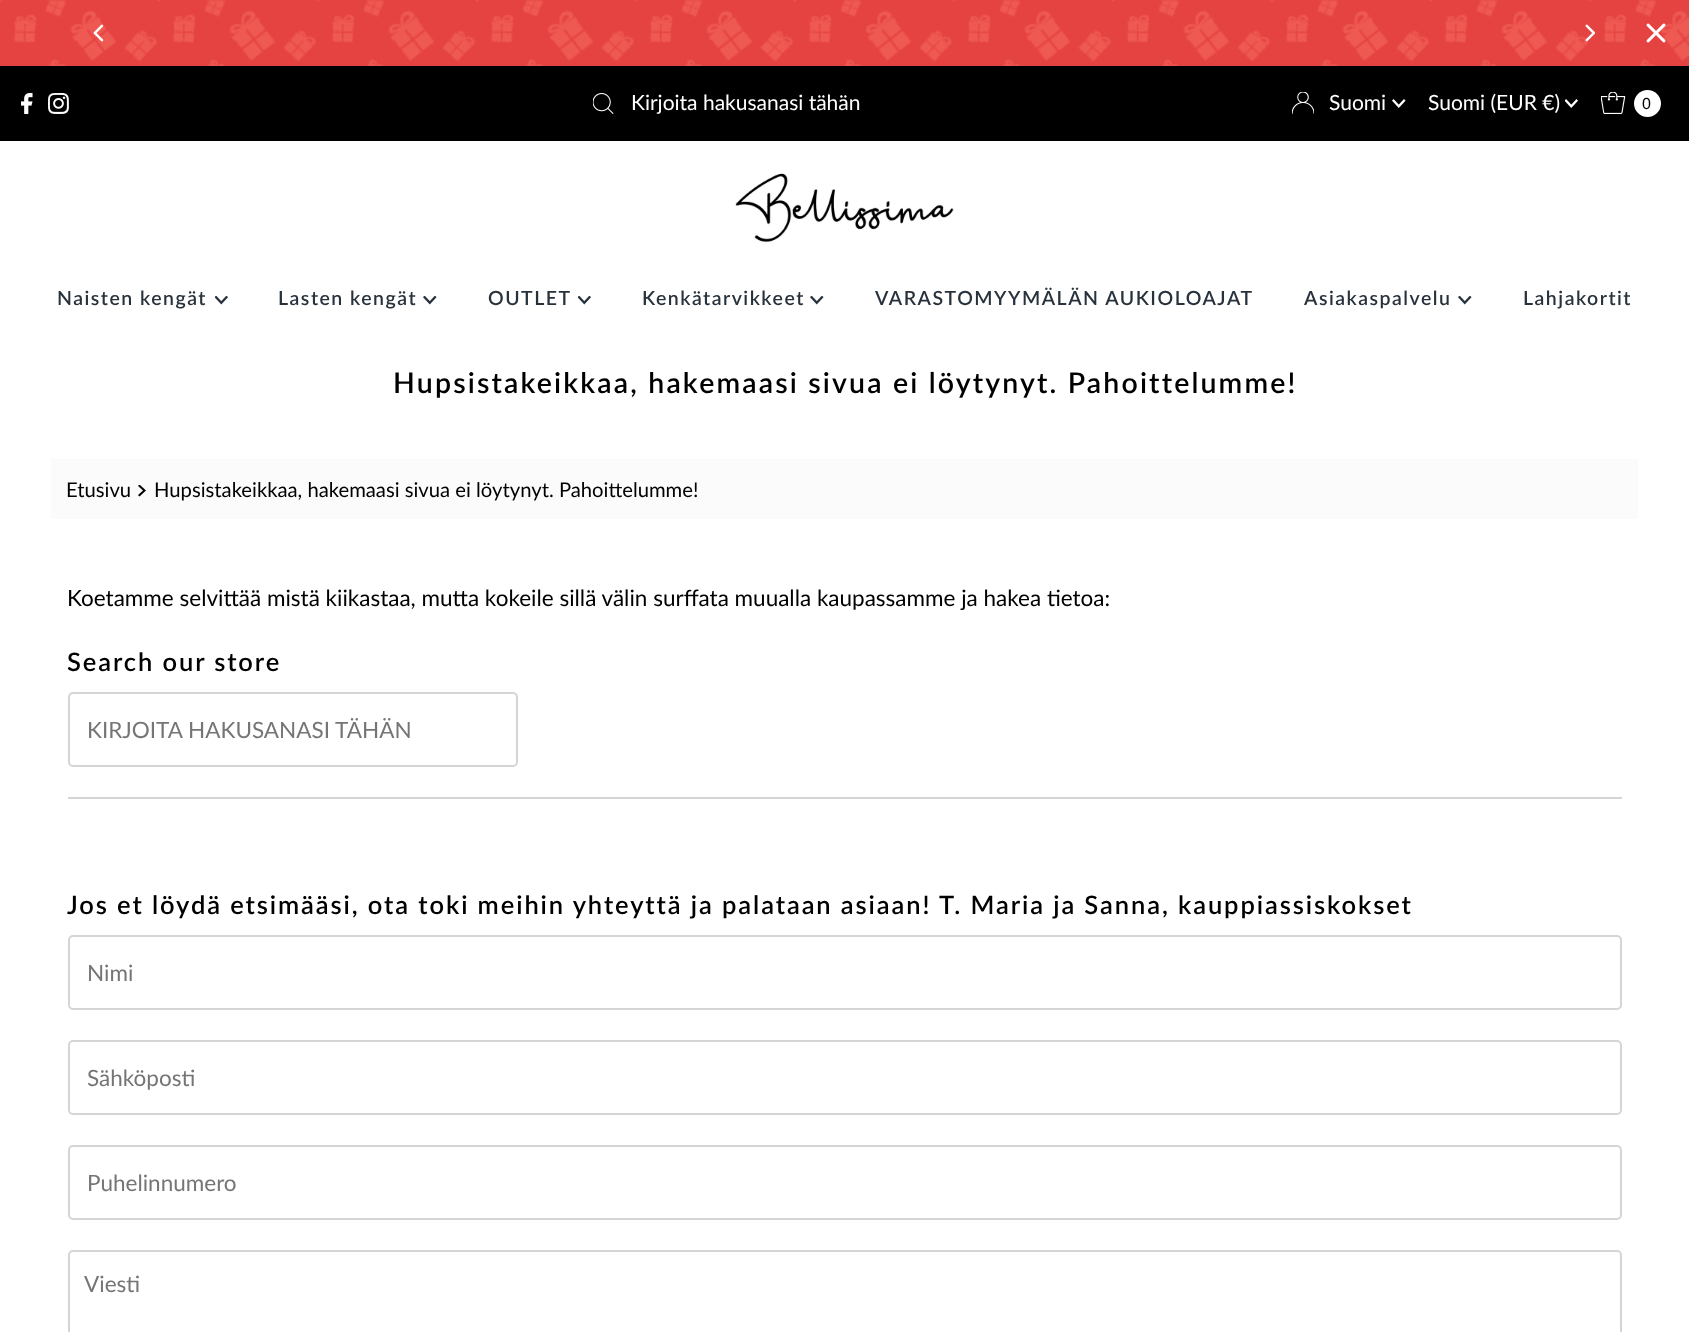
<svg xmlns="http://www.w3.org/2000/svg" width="1689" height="1332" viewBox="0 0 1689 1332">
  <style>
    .t1 { font: 21px Lato; fill: #fff; }
    .t2 { font: 16px Liberation Sans; fill: #000; }
    .t3 { font: 600 19.5px Lato; letter-spacing: 1.5px; fill: #28323c; }
    .t4 { font: 600 28.5px Lato; letter-spacing: 2.15px; fill: #000; }
    .t5 { font: 20.25px Lato; fill: #000; }
    .t6 { font: 22.5px Lato; fill: #000; }
    .t7 { font: 600 25.5px Lato; letter-spacing: 1.91px; fill: #000; }
    .t8 { font: 22.5px Lato; fill: #757575; }
  </style>
  <rect width="100%" height="100%" fill="#fff"/>
  <image x="0" y="0" width="1689" height="66" href="images/1.png"/>
  <image x="93" y="24" width="11" height="18" href="images/2.png"/>
  <image x="1585" y="24" width="11" height="18" href="images/3.png"/>
  <image x="1646" y="23" width="20" height="20" href="images/4.png"/>
  <rect x="0" y="66" width="1689" height="75" fill="#000"/>
  <image x="21" y="93" width="12" height="21" href="images/5.png"/>
  <image x="48" y="93" width="21" height="21" href="images/6.png"/>
  <image x="593" y="93" width="21" height="21" href="images/7.png"/>
  <text x="631" y="110" class="t1">Kirjoita hakusanasi tähän</text>
  <image x="1292" y="92" width="22" height="22" href="images/8.png"/>
  <text x="1329" y="110" class="t1">Suomi</text>
  <image x="1392" y="99" width="14" height="9" href="images/9.png"/>
  <text x="1428" y="110" class="t1">Suomi (EUR €)</text>
  <image x="1565" y="99" width="13" height="9" href="images/10.png"/>
  <image x="1601" y="92" width="25" height="22" href="images/11.png"/>
  <circle cx="1647.5" cy="103.5" r="13.5" fill="#fff"/>
  <text x="1642" y="109" class="t2">0</text>
  <image x="735" y="173" width="219" height="70" href="images/12.png"/>
  <text x="57" y="305" class="t3">Naisten kengät</text>
  <image x="215" y="296" width="13" height="9" href="images/13.png"/>
  <text x="278" y="305" class="t3">Lasten kengät</text>
  <image x="423" y="296" width="14" height="9" href="images/14.png"/>
  <text x="488" y="305" class="t3">OUTLET</text>
  <image x="578" y="296" width="13" height="9" href="images/13.png"/>
  <text x="642" y="305" class="t3">Kenkätarvikkeet</text>
  <image x="810" y="296" width="14" height="9" href="images/14.png"/>
  <text x="875" y="305" class="t3">VARASTOMYYMÄLÄN AUKIOLOAJAT</text>
  <text x="1304" y="305" class="t3">Asiakaspalvelu</text>
  <image x="1458" y="296" width="14" height="9" href="images/14.png"/>
  <text x="1523" y="305" class="t3">Lahjakortit</text>
  <text x="393" y="393" class="t4">Hupsistakeikkaa, hakemaasi sivua ei löytynyt. Pahoittelumme!</text>
  <rect x="51" y="459" width="1587" height="60" fill="#fbfbfb"/>
  <text x="66" y="497" class="t5">Etusivu</text>
  <image x="138" y="485" width="8" height="12" href="images/15.png"/>
  <text x="154" y="497" class="t5">Hupsistakeikkaa, hakemaasi sivua ei löytynyt. Pahoittelumme!</text>
  <text x="67" y="606" class="t6">Koetamme selvittää mistä kiikastaa, mutta kokeile sillä välin surffata muualla kaupassamme ja hakea tietoa:</text>
  <rect x="68" y="797" width="1554" height="2" fill="#d5d5d5"/>
  <text x="67" y="671" class="t7">Search our store</text>
  <rect x="69" y="693" width="448" height="73" rx="4" fill="none" stroke="#d5d5d5" stroke-width="2"/>
  <text x="87" y="738" class="t8">KIRJOITA HAKUSANASI TÄHÄN</text>
  <text x="67" y="914" class="t7">Jos et löydä etsimääsi, ota toki meihin yhteyttä ja palataan asiaan! T. Maria ja Sanna, kauppiassiskokset</text>
  <rect x="69" y="936" width="1552" height="73" rx="4" fill="none" stroke="#d5d5d5" stroke-width="2"/>
  <text x="87" y="981" class="t8">Nimi</text>
  <rect x="69" y="1041" width="1552" height="73" rx="4" fill="none" stroke="#d5d5d5" stroke-width="2"/>
  <text x="87" y="1086" class="t8">Sähköposti</text>
  <rect x="69" y="1146" width="1552" height="73" rx="4" fill="none" stroke="#d5d5d5" stroke-width="2"/>
  <text x="87" y="1191" class="t8">Puhelinnumero</text>
  <rect x="69" y="1251" width="1552" height="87" rx="4" fill="none" stroke="#d5d5d5" stroke-width="2"/>
  <text x="84" y="1292" class="t8">Viesti</text>
</svg>
